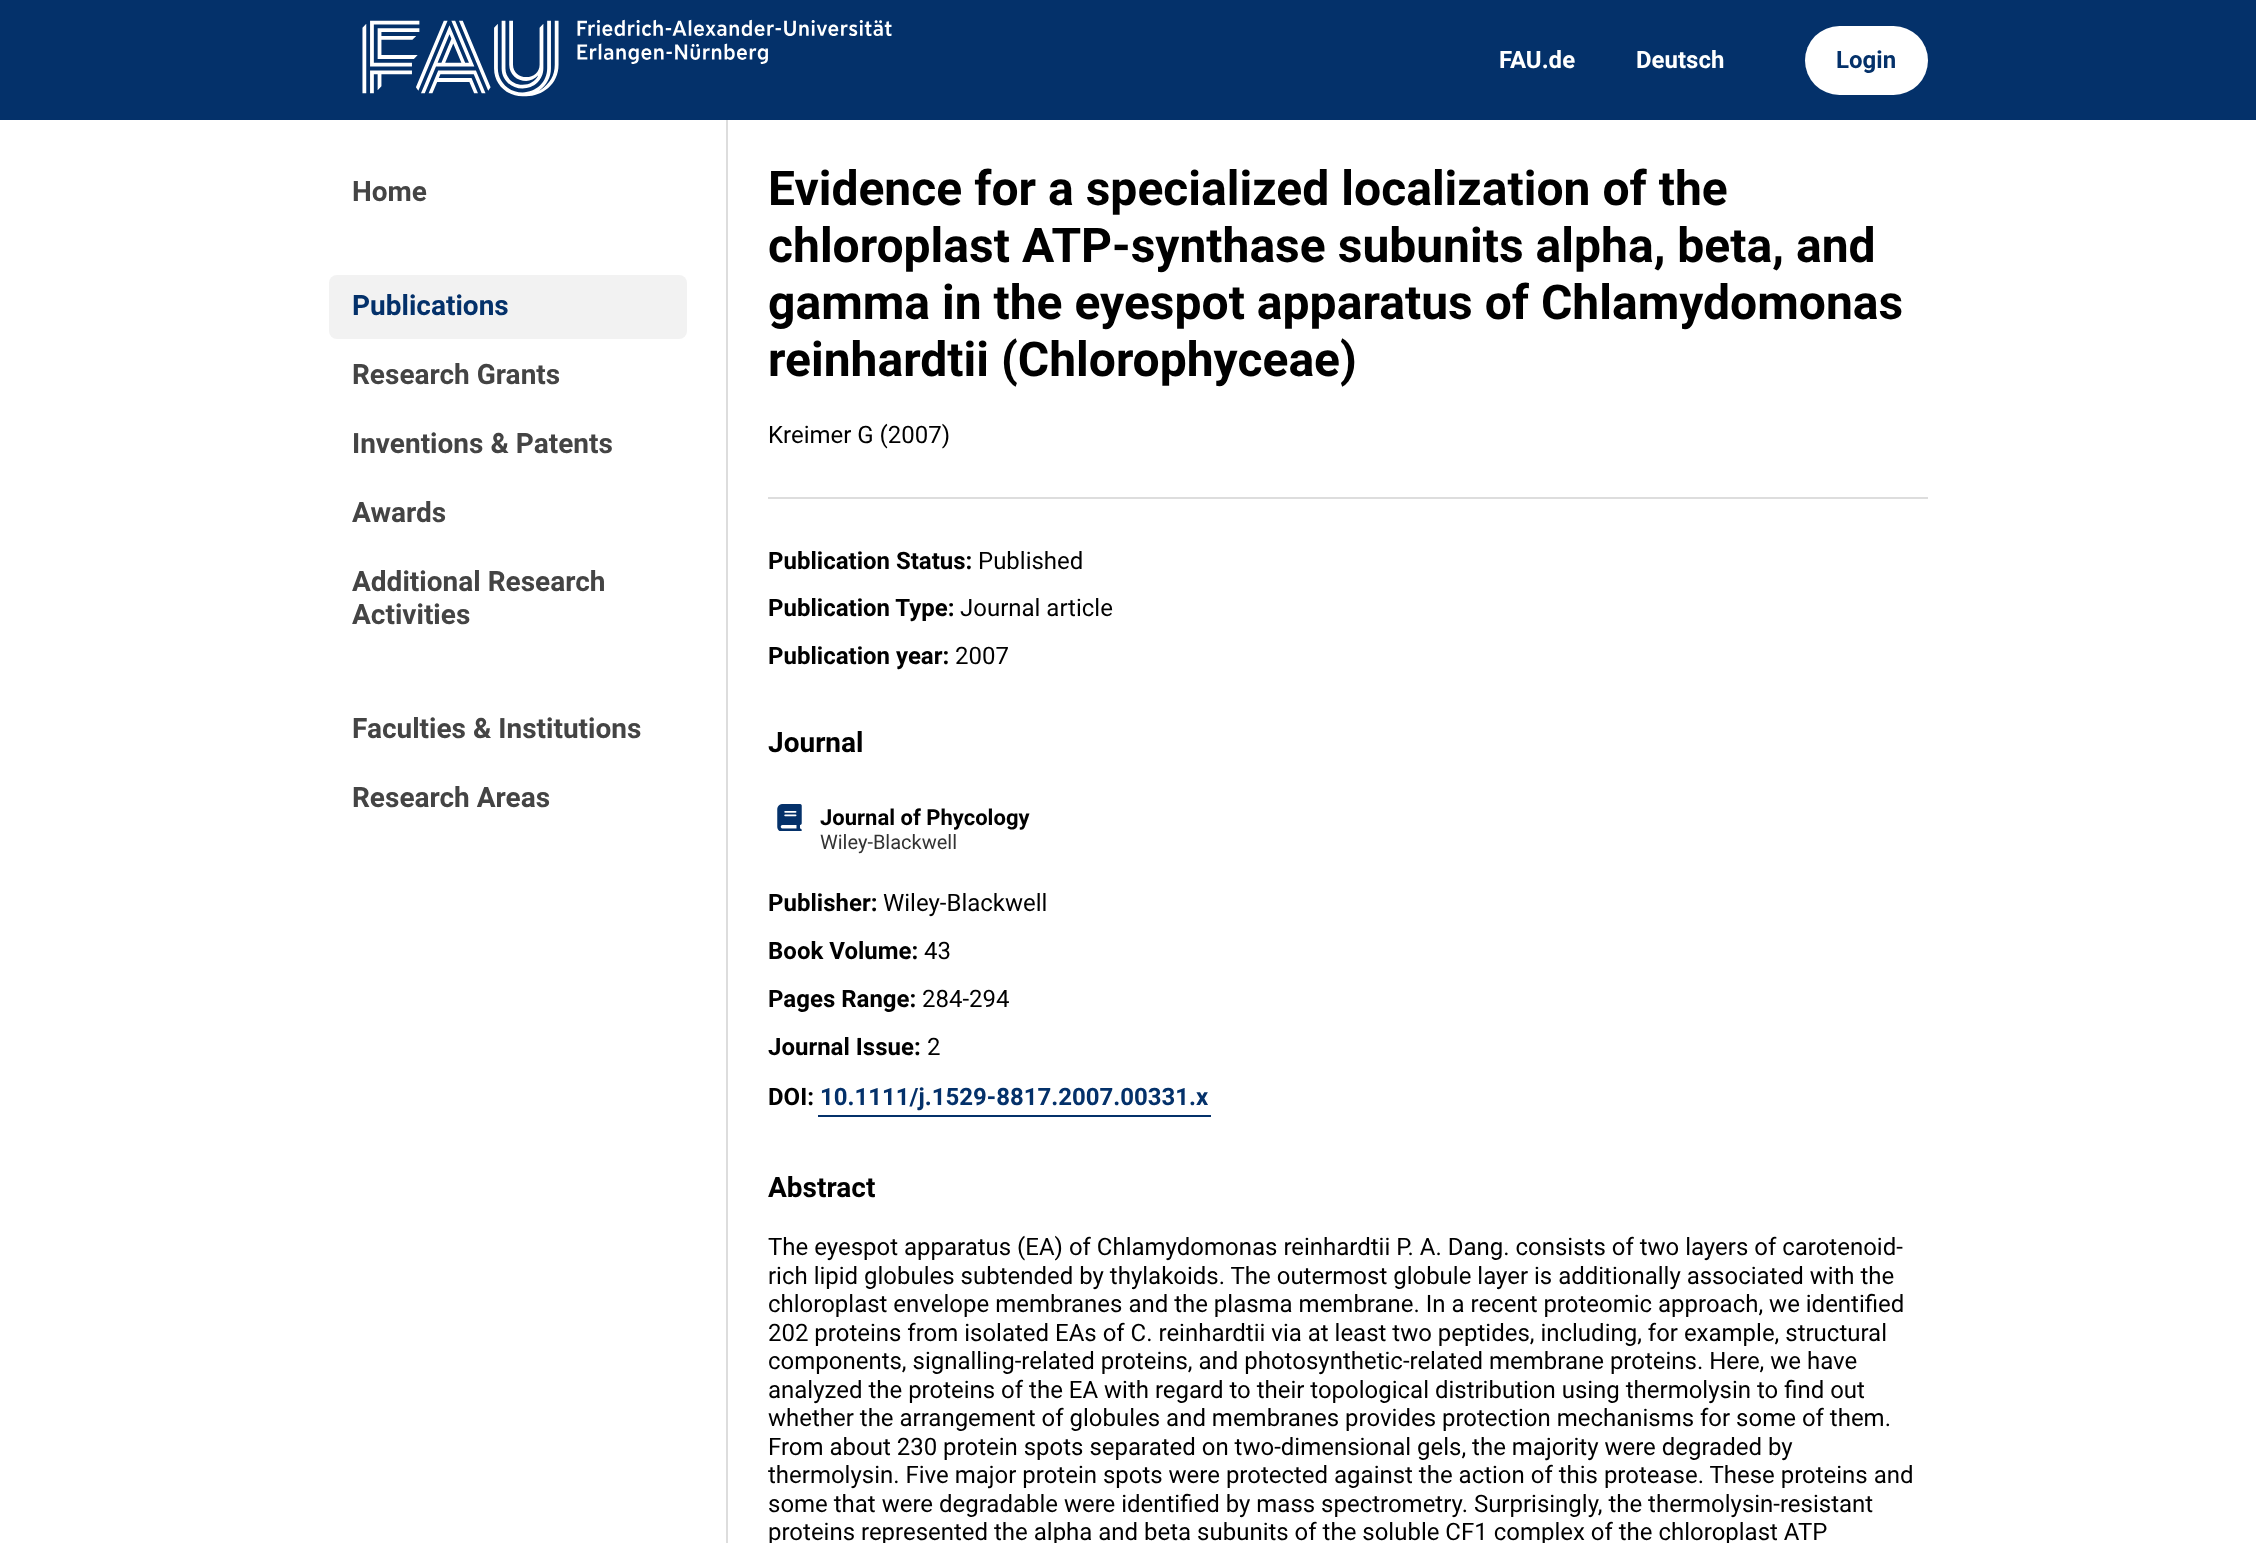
<svg xmlns="http://www.w3.org/2000/svg" width="2256" height="1543" viewBox="0 0 2256 1543">
  <style>
    .t1 { font: bold 24px Roboto; fill: #fff; }
    .t2 { font: bold 24px Roboto; fill: #04316a; }
    .t3 { font: bold 28px Roboto; fill: #444; }
    .t4 { font: bold 28px Roboto; fill: #04316a; }
    .t5 { font: bold 48px Roboto; fill: #000; }
    .t6 { font: 24px Roboto; fill: #000; }
    .t7 { font: bold 24px Roboto; fill: #000; }
    .t8 { font: bold 28px Roboto; fill: #000; }
    .t9 { font: bold 22px Roboto; fill: #000; }
    .t10 { font: 20px Roboto; fill: #333; }
  </style>
  <rect width="100%" height="100%" fill="#fff"/>
  <rect x="0" y="0" width="2256" height="120" fill="#04316a"/>
  <image x="362" y="19" width="530" height="78" href="images/1.png"/>
  <text x="1499" y="68" class="t1">FAU.de</text>
  <text x="1636" y="68" class="t1">Deutsch</text>
  <rect x="1805" y="26" width="123" height="69" rx="34.5" fill="#fff"/>
  <text x="1836" y="68" class="t2">Login</text>
  <rect x="726" y="120" width="2" height="1423" fill="#ddd"/>
  <text x="352" y="201" class="t3">Home</text>
  <rect x="329" y="275" width="358" height="64" rx="8" fill="#f2f2f2"/>
  <text x="352" y="315" class="t4">Publications</text>
  <text x="352" y="384" class="t3">Research Grants</text>
  <text x="352" y="453" class="t3">Inventions &amp; Patents</text>
  <text x="352" y="522" class="t3">Awards</text>
  <text x="352" y="591" class="t3">Additional Research</text>
  <text x="352" y="624" class="t3">Activities</text>
  <text x="352" y="738" class="t3">Faculties &amp; Institutions</text>
  <text x="352" y="807" class="t3">Research Areas</text>
  <text x="768" y="205" class="t5">Evidence for a specialized localization of the</text>
  <text x="768" y="262" class="t5">chloroplast ATP-synthase subunits alpha, beta, and</text>
  <text x="768" y="319" class="t5">gamma in the eyespot apparatus of Chlamydomonas</text>
  <text x="768" y="376" class="t5">reinhardtii (Chlorophyceae)</text>
  <text x="768" y="443" class="t6">Kreimer G (2007)</text>
  <rect x="768" y="497" width="1160" height="2" fill="#ddd"/>
  <text x="768" y="569" class="t7">Publication Status:</text>
  <text x="978" y="569" class="t6">Published</text>
  <text x="768" y="616" class="t7">Publication Type:</text>
  <text x="960" y="616" class="t6">Journal article</text>
  <text x="768" y="664" class="t7">Publication year:</text>
  <text x="955" y="664" class="t6">2007</text>
  <text x="768" y="752" class="t8">Journal</text>
  <image x="777" y="804" width="25" height="27" href="images/2.png"/>
  <text x="820" y="825" class="t9">Journal of Phycology</text>
  <text x="820" y="849" class="t10">Wiley-Blackwell</text>
  <text x="768" y="911" class="t7">Publisher:</text>
  <text x="883" y="911" class="t6">Wiley-Blackwell</text>
  <text x="768" y="959" class="t7">Book Volume:</text>
  <text x="924" y="959" class="t6">43</text>
  <text x="768" y="1007" class="t7">Pages Range:</text>
  <text x="922" y="1007" class="t6">284-294</text>
  <text x="768" y="1055" class="t7">Journal Issue:</text>
  <text x="927" y="1055" class="t6">2</text>
  <text x="768" y="1105" class="t7">DOI:</text>
  <text x="820" y="1105" class="t2">10.1111/j.1529-8817.2007.00331.x</text>
  <rect x="818" y="1115" width="393" height="2" fill="#04316a"/>
  <text x="768" y="1197" class="t8">Abstract</text>
  <text x="768" y="1255" class="t6">The eyespot apparatus (EA) of Chlamydomonas reinhardtii P. A. Dang. consists of two layers of carotenoid-</text>
  <text x="768" y="1284" class="t6">rich lipid globules subtended by thylakoids. The outermost globule layer is additionally associated with the</text>
  <text x="768" y="1312" class="t6">chloroplast envelope membranes and the plasma membrane. In a recent proteomic approach, we identified</text>
  <text x="768" y="1341" class="t6">202 proteins from isolated EAs of C. reinhardtii via at least two peptides, including, for example, structural</text>
  <text x="768" y="1369" class="t6">components, signalling-related proteins, and photosynthetic-related membrane proteins. Here, we have</text>
  <text x="768" y="1398" class="t6">analyzed the proteins of the EA with regard to their topological distribution using thermolysin to find out</text>
  <text x="768" y="1426" class="t6">whether the arrangement of globules and membranes provides protection mechanisms for some of them.</text>
  <text x="768" y="1455" class="t6">From about 230 protein spots separated on two-dimensional gels, the majority were degraded by</text>
  <text x="768" y="1483" class="t6">thermolysin. Five major protein spots were protected against the action of this protease. These proteins and</text>
  <text x="768" y="1512" class="t6">some that were degradable were identified by mass spectrometry. Surprisingly, the thermolysin-resistant</text>
  <text x="768" y="1540" class="t6">proteins represented the alpha and beta subunits of the soluble CF1 complex of the chloroplast ATP</text>
</svg>
